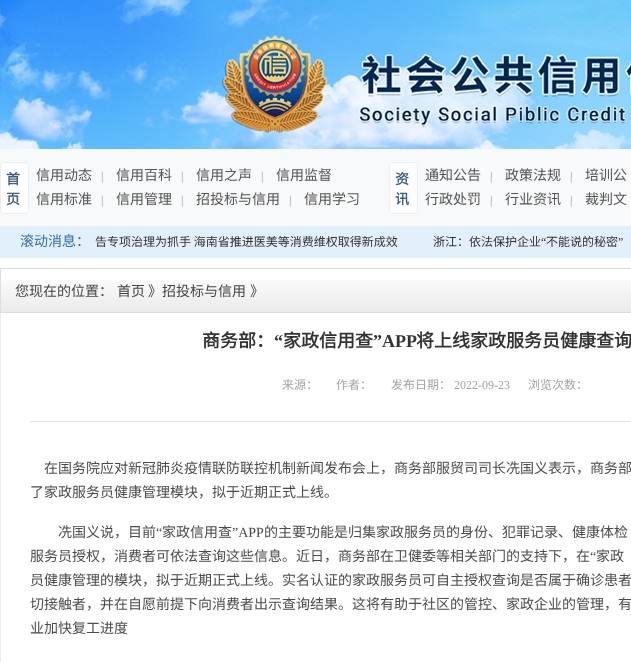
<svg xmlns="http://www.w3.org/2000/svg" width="631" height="662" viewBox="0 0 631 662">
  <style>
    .t1 { font: bold 14px Noto Sans CJK SC; fill: #405f7b; }
    .t2 { font: 14px Noto Sans CJK SC; fill: #555; }
    .t3 { font: 12px Liberation Serif; fill: #999; }
    .t4 { font: 14px Noto Sans CJK SC; fill: #366ea3; }
    .t5 { font: 12px Noto Sans CJK SC; fill: #333; }
    .t6 { font: 12px Liberation Serif; fill: #333; }
    .t7 { font: 14px Noto Sans CJK SC; fill: #474545; }
    .t8 { font: bold 18px Noto Sans CJK SC; fill: #333; }
    .t9 { font: bold 18px Liberation Serif; fill: #333; }
    .t10 { font: 12px Noto Sans CJK SC; fill: #a4a4a4; }
    .t11 { font: 12px Liberation Serif; fill: #a4a4a4; }
    .t12 { font: 14px Noto Sans CJK SC; fill: #4c4c4c; }
    .t13 { font: 14px Liberation Serif; fill: #4c4c4c; }
  </style>
  <rect width="100%" height="100%" fill="#fff"/>
  <image x="0" y="0" width="631" height="149" href="images/1.png"/>
  <rect x="0" y="149" width="631" height="77" fill="#f8f9fa"/>
  <rect x="0.5" y="162.5" width="28" height="51" rx="3.5" fill="#fff" stroke="#eee"/>
  <text x="6" y="184" class="t1">首</text>
  <text x="6" y="204" class="t1">页</text>
  <text x="36" y="180" class="t2">信用动态</text>
  <text x="101" y="180" class="t3">|</text>
  <text x="116" y="180" class="t2">信用百科</text>
  <text x="181" y="180" class="t3">|</text>
  <text x="196" y="180" class="t2">信用之声</text>
  <text x="261" y="180" class="t3">|</text>
  <text x="276" y="180" class="t2">信用监督</text>
  <text x="36" y="204" class="t2">信用标准</text>
  <text x="101" y="204" class="t3">|</text>
  <text x="116" y="204" class="t2">信用管理</text>
  <text x="181" y="204" class="t3">|</text>
  <text x="196" y="204" class="t2">招投标与信用</text>
  <text x="289" y="204" class="t3">|</text>
  <text x="304" y="204" class="t2">信用学习</text>
  <rect x="389.5" y="162.5" width="28" height="51" rx="3.5" fill="#fff" stroke="#eee"/>
  <text x="395" y="184" class="t1">资</text>
  <text x="395" y="204" class="t1">讯</text>
  <text x="425" y="180" class="t2">通知公告</text>
  <text x="490" y="180" class="t3">|</text>
  <text x="505" y="180" class="t2">政策法规</text>
  <text x="570" y="180" class="t3">|</text>
  <text x="585" y="180" class="t2">培训公</text>
  <text x="425" y="204" class="t2">行政处罚</text>
  <text x="490" y="204" class="t3">|</text>
  <text x="505" y="204" class="t2">行业资讯</text>
  <text x="570" y="204" class="t3">|</text>
  <text x="585" y="204" class="t2">裁判文</text>
  <rect x="0" y="226" width="631" height="32" fill="#e2f0fb"/>
  <text x="20" y="246" class="t4">滚动消息：</text>
  <text x="95" y="246" class="t5">告专项治理为抓手 海南省推进医美等消费维权取得新成效</text>
  <text x="433" y="246" class="t5">浙江：依法保护企业</text>
  <text x="541" y="246" class="t6">“</text>
  <text x="546" y="246" class="t5">不能说的秘密</text>
  <text x="618" y="246" class="t6">”</text>
  <image x="1" y="280" width="630" height="32" href="images/2.png"/>
  <rect x="0.5" y="268.5" width="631" height="44" fill="none" stroke="#dedede"/>
  <text x="15" y="296" class="t7">您现在的位置：</text>
  <text x="117" y="296" class="t7">首页</text>
  <text x="148" y="296" class="t7">》招投标与信用</text>
  <text x="250" y="296" class="t7">》</text>
  <rect x="0" y="313" width="1" height="349" fill="#ececec"/>
  <text x="202" y="347" class="t8">商务部：</text>
  <text x="274" y="347" class="t9">“</text>
  <text x="283" y="347" class="t8">家政信用查</text>
  <text x="373" y="347" class="t9">”APP</text>
  <text x="416" y="347" class="t8">将上线家政服务员健康查询</text>
  <rect x="30" y="421" width="601" height="1" fill="#e4e4e4"/>
  <text x="282" y="389" class="t10">来源：</text>
  <text x="336" y="389" class="t10">作者：</text>
  <text x="391" y="389" class="t10">发布日期：</text>
  <text x="454" y="389" class="t11">2022-09-23</text>
  <text x="528" y="389" class="t10">浏览次数：</text>
  <text x="44" y="473" class="t12">在国务院应对新冠肺炎疫情联防联控机制新闻发布会上，商务部服贸司司长冼国义表示，商务部</text>
  <text x="30" y="497" class="t12">了家政服务员健康管理模块，拟于近期正式上线。</text>
  <text x="58" y="537" class="t12">冼国义说，目前</text>
  <text x="156" y="537" class="t13">“</text>
  <text x="162" y="537" class="t12">家政信用查</text>
  <text x="232" y="537" class="t13">”APP</text>
  <text x="264" y="537" class="t12">的主要功能是归集家政服务员的身份、犯罪记录、健康体检</text>
  <text x="30" y="561" class="t12">服务员授权，消费者可依法查询这些信息。近日，商务部在卫健委等相关部门的支持下，在</text>
  <text x="590" y="561" class="t13">“</text>
  <text x="596" y="561" class="t12">家政</text>
  <text x="30" y="585" class="t12">员健康管理的模块，拟于近期正式上线。实名认证的家政服务员可自主授权查询是否属于确诊患者</text>
  <text x="30" y="609" class="t12">切接触者，并在自愿前提下向消费者出示查询结果。这将有助于社区的管控、家政企业的管理，有</text>
  <text x="30" y="633" class="t12">业加快复工进度</text>
</svg>
